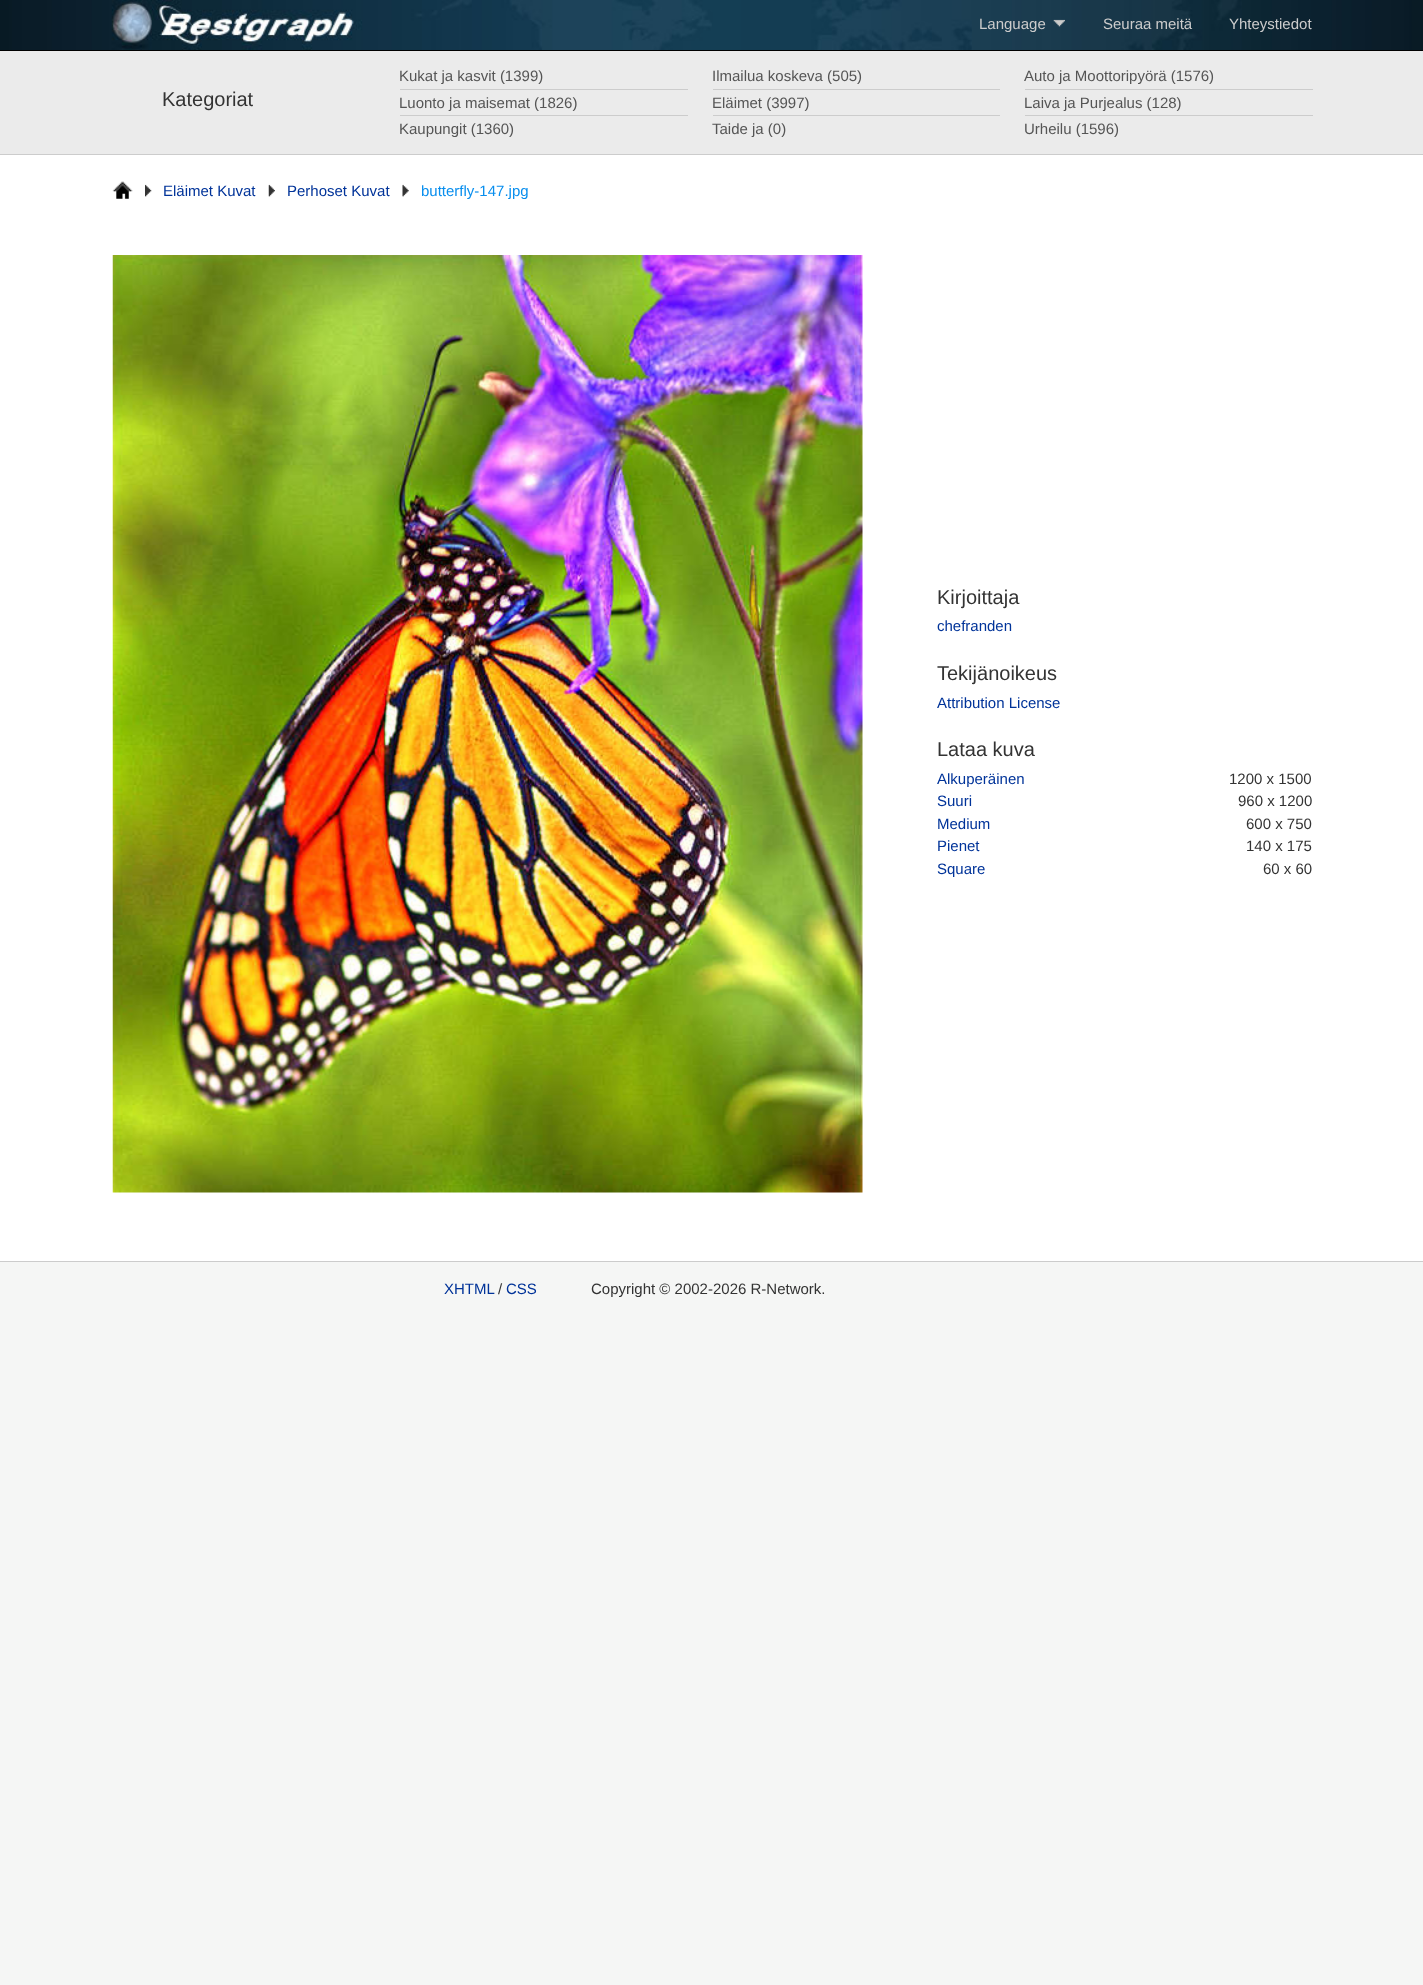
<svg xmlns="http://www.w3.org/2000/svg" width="1423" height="1985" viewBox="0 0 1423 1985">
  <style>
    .t1 { font: 15px Liberation Sans; fill: #ccc; }
    .t2 { font: 20px Liberation Sans; fill: #333; }
    .t3 { font: 15px Liberation Sans; fill: #555; }
    .t4 { font: 15px Liberation Sans; fill: #039; }
    .t5 { font: 15px Liberation Sans; fill: #088eee; }
    .t6 { font: 15px Liberation Sans; fill: #333; }
  </style>
  <rect width="100%" height="100%" fill="#f5f6f5"/>
  <rect x="0" y="50" width="1423" height="1" fill="#000"/>
  <image x="0" y="0" width="1423" height="50" href="images/1.png"/>
  <text x="979" y="29" class="t1">Language</text>
  <image x="1053" y="19" width="12" height="8" href="images/2.png"/>
  <text x="1103" y="29" class="t1">Seuraa meitä</text>
  <text x="1229" y="29" class="t1">Yhteystiedot</text>
  <rect x="0" y="51" width="1423" height="103" fill="#ebebeb"/>
  <rect x="0" y="154" width="1423" height="1" fill="#ccc"/>
  <text x="162" y="106" class="t2">Kategoriat</text>
  <rect x="400" y="89" width="288" height="1" fill="#ccc"/>
  <text x="399" y="81" class="t3">Kukat ja kasvit (1399)</text>
  <rect x="713" y="89" width="287" height="1" fill="#ccc"/>
  <text x="712" y="81" class="t3">Ilmailua koskeva (505)</text>
  <rect x="1025" y="89" width="288" height="1" fill="#ccc"/>
  <text x="1024" y="81" class="t3">Auto ja Moottoripyörä (1576)</text>
  <rect x="400" y="115" width="288" height="1" fill="#ccc"/>
  <text x="399" y="108" class="t3">Luonto ja maisemat (1826)</text>
  <rect x="713" y="115" width="287" height="1" fill="#ccc"/>
  <text x="712" y="108" class="t3">Eläimet (3997)</text>
  <rect x="1025" y="115" width="288" height="1" fill="#ccc"/>
  <text x="1024" y="108" class="t3">Laiva ja Purjealus (128)</text>
  <text x="399" y="134" class="t3">Kaupungit (1360)</text>
  <text x="712" y="134" class="t3">Taide ja (0)</text>
  <text x="1024" y="134" class="t3">Urheilu (1596)</text>
  <rect x="0" y="155" width="1423" height="1106" fill="#fff"/>
  <image x="112" y="181" width="21" height="18" href="images/3.png"/>
  <image x="145" y="184" width="7" height="13" href="images/4.png"/>
  <text x="163" y="196" class="t4">Eläimet Kuvat</text>
  <image x="268" y="184" width="7" height="13" href="images/5.png"/>
  <text x="287" y="196" class="t4">Perhoset Kuvat</text>
  <image x="402" y="184" width="7" height="13" href="images/6.png"/>
  <text x="421" y="196" class="t5">butterfly-147.jpg</text>
  <image x="112" y="255" width="751" height="938" href="images/7.png"/>
  <text x="937" y="604" class="t2">Kirjoittaja</text>
  <text x="937" y="631" class="t4">chefranden</text>
  <text x="937" y="680" class="t2">Tekijänoikeus</text>
  <text x="937" y="708" class="t4">Attribution License</text>
  <text x="937" y="756" class="t2">Lataa kuva</text>
  <text x="937" y="784" class="t4">Alkuperäinen</text>
  <text x="1229" y="784" class="t6">1200 x 1500</text>
  <text x="937" y="806" class="t4">Suuri</text>
  <text x="1238" y="806" class="t6">960 x 1200</text>
  <text x="937" y="829" class="t4">Medium</text>
  <text x="1246" y="829" class="t6">600 x 750</text>
  <text x="937" y="851" class="t4">Pienet</text>
  <text x="1246" y="851" class="t6">140 x 175</text>
  <text x="937" y="874" class="t4">Square</text>
  <text x="1263" y="874" class="t6">60 x 60</text>
  <rect x="0" y="1261" width="1423" height="1" fill="#ccc"/>
  <text x="444" y="1294" class="t4">XHTML</text>
  <text x="498" y="1294" class="t6">/</text>
  <text x="506" y="1294" class="t4">CSS</text>
  <text x="591" y="1294" class="t6">Copyright © 2002-2026 R-Network.</text>
</svg>
